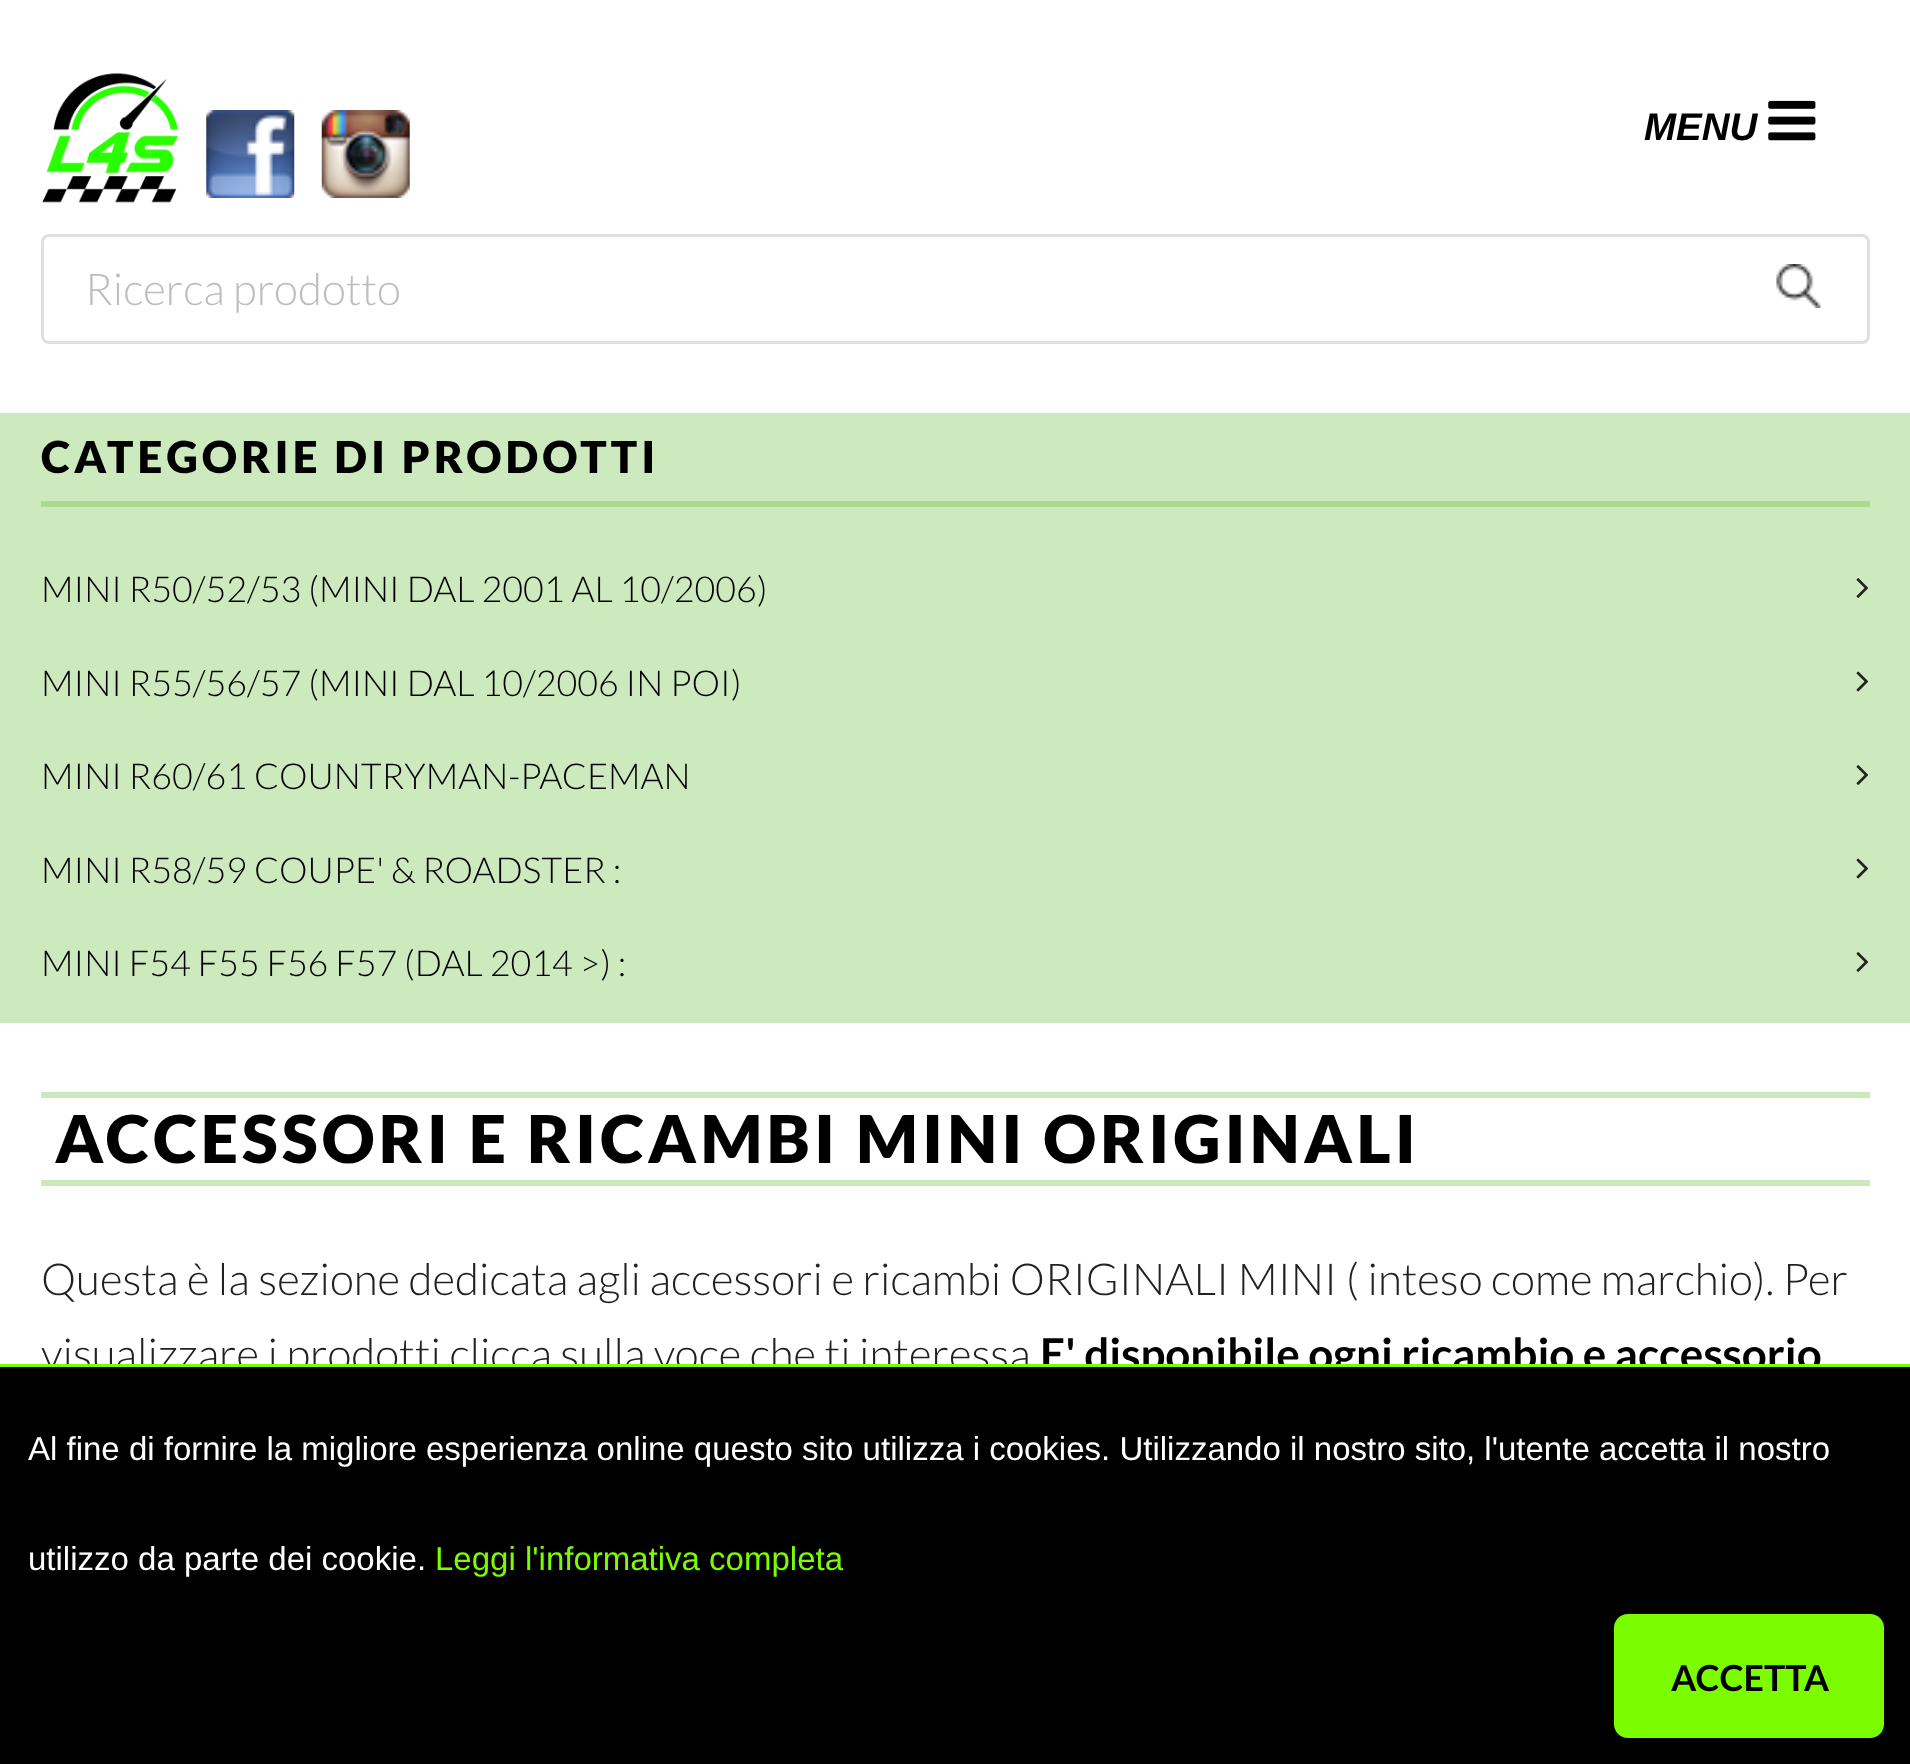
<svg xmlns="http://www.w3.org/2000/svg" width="1910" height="1764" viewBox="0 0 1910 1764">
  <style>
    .t1 { font: italic bold 38.5px Liberation Sans; fill: #000; }
    .t2 { font: 300 44px Lato; fill: #bdbdbd; }
    .t3 { font: 900 44px Lato; letter-spacing: 4.1px; fill: #000; }
    .t4 { font: 300 35.75px Lato; fill: #000; }
    .t5 { font: 900 66px Lato; letter-spacing: 4.1px; fill: #000; }
    .t6 { font: 300 44px Lato; fill: #212121; }
    .t7 { font: bold 44px Lato; fill: #000; }
    .t8 { font: 33px Liberation Sans; fill: #fff; }
    .t9 { font: 33px Liberation Sans; fill: #7cfc00; }
    .t10 { font: bold 35.75px Lato; fill: #000; }
  </style>
  <rect width="100%" height="100%" fill="#fff"/>
  <image x="42" y="73" width="137" height="130" href="images/1.png"/>
  <image x="206" y="110" width="89" height="88" href="images/2.png"/>
  <image x="321" y="110" width="89" height="88" href="images/3.png"/>
  <text x="1644" y="140" class="t1">MENU</text>
  <image x="1768" y="100" width="48" height="41" href="images/4.png"/>
  <rect x="42.5" y="235.5" width="1826" height="107" rx="6.5" fill="none" stroke="#e0e0e0" stroke-width="3"/>
  <text x="85" y="305" class="t2">Ricerca prodotto</text>
  <image x="1776" y="264" width="45" height="44" href="images/5.png"/>
  <rect x="0" y="413" width="1910" height="610" fill="#cdeabe"/>
  <rect x="41" y="501" width="1829" height="6" fill="#abdb92"/>
  <text x="41" y="473" class="t3">CATEGORIE DI PRODOTTI</text>
  <text x="41" y="602" class="t4">MINI R50/52/53 (MINI DAL 2001 AL 10/2006)</text>
  <image x="1856" y="578" width="12" height="20" href="images/6.png"/>
  <text x="41" y="696" class="t4">MINI R55/56/57 (MINI DAL 10/2006 IN POI)</text>
  <image x="1856" y="671" width="13" height="21" href="images/7.png"/>
  <text x="41" y="789" class="t4">MINI R60/61 COUNTRYMAN-PACEMAN</text>
  <image x="1856" y="765" width="12" height="20" href="images/6.png"/>
  <text x="41" y="883" class="t4">MINI R58/59 COUPE' &amp; ROADSTER :</text>
  <image x="1856" y="858" width="13" height="21" href="images/7.png"/>
  <text x="41" y="976" class="t4">MINI F54 F55 F56 F57 (DAL 2014 &gt;) :</text>
  <image x="1856" y="952" width="12" height="20" href="images/6.png"/>
  <rect x="41" y="1092" width="1829" height="6" fill="#cce9bd"/>
  <rect x="41" y="1180" width="1829" height="6" fill="#cce9bd"/>
  <text x="55" y="1163" class="t5">ACCESSORI E RICAMBI MINI ORIGINALI</text>
  <text x="41" y="1295" class="t6">Questa è la sezione dedicata agli accessori e ricambi ORIGINALI MINI ( inteso come marchio). Per</text>
  <text x="41" y="1370" class="t6">visualizzare i prodotti clicca sulla voce che ti interessa</text>
  <text x="1040" y="1370" class="t7">E' disponibile ogni ricambio e accessorio</text>
  <rect x="0" y="1367" width="1910" height="397" fill="#000"/>
  <rect x="0" y="1364" width="1910" height="3" fill="#7cfc00"/>
  <text x="28" y="1460" class="t8">Al fine di fornire la migliore esperienza online questo sito utilizza i cookies. Utilizzando il nostro sito, l'utente accetta il nostro</text>
  <text x="28" y="1570" class="t8">utilizzo da parte dei cookie.</text>
  <text x="435" y="1570" class="t9">Leggi l'informativa completa</text>
  <rect x="1614" y="1614" width="270" height="124" rx="14" fill="#7cfc00"/>
  <text x="1671" y="1691" class="t10">ACCETTA</text>
</svg>
